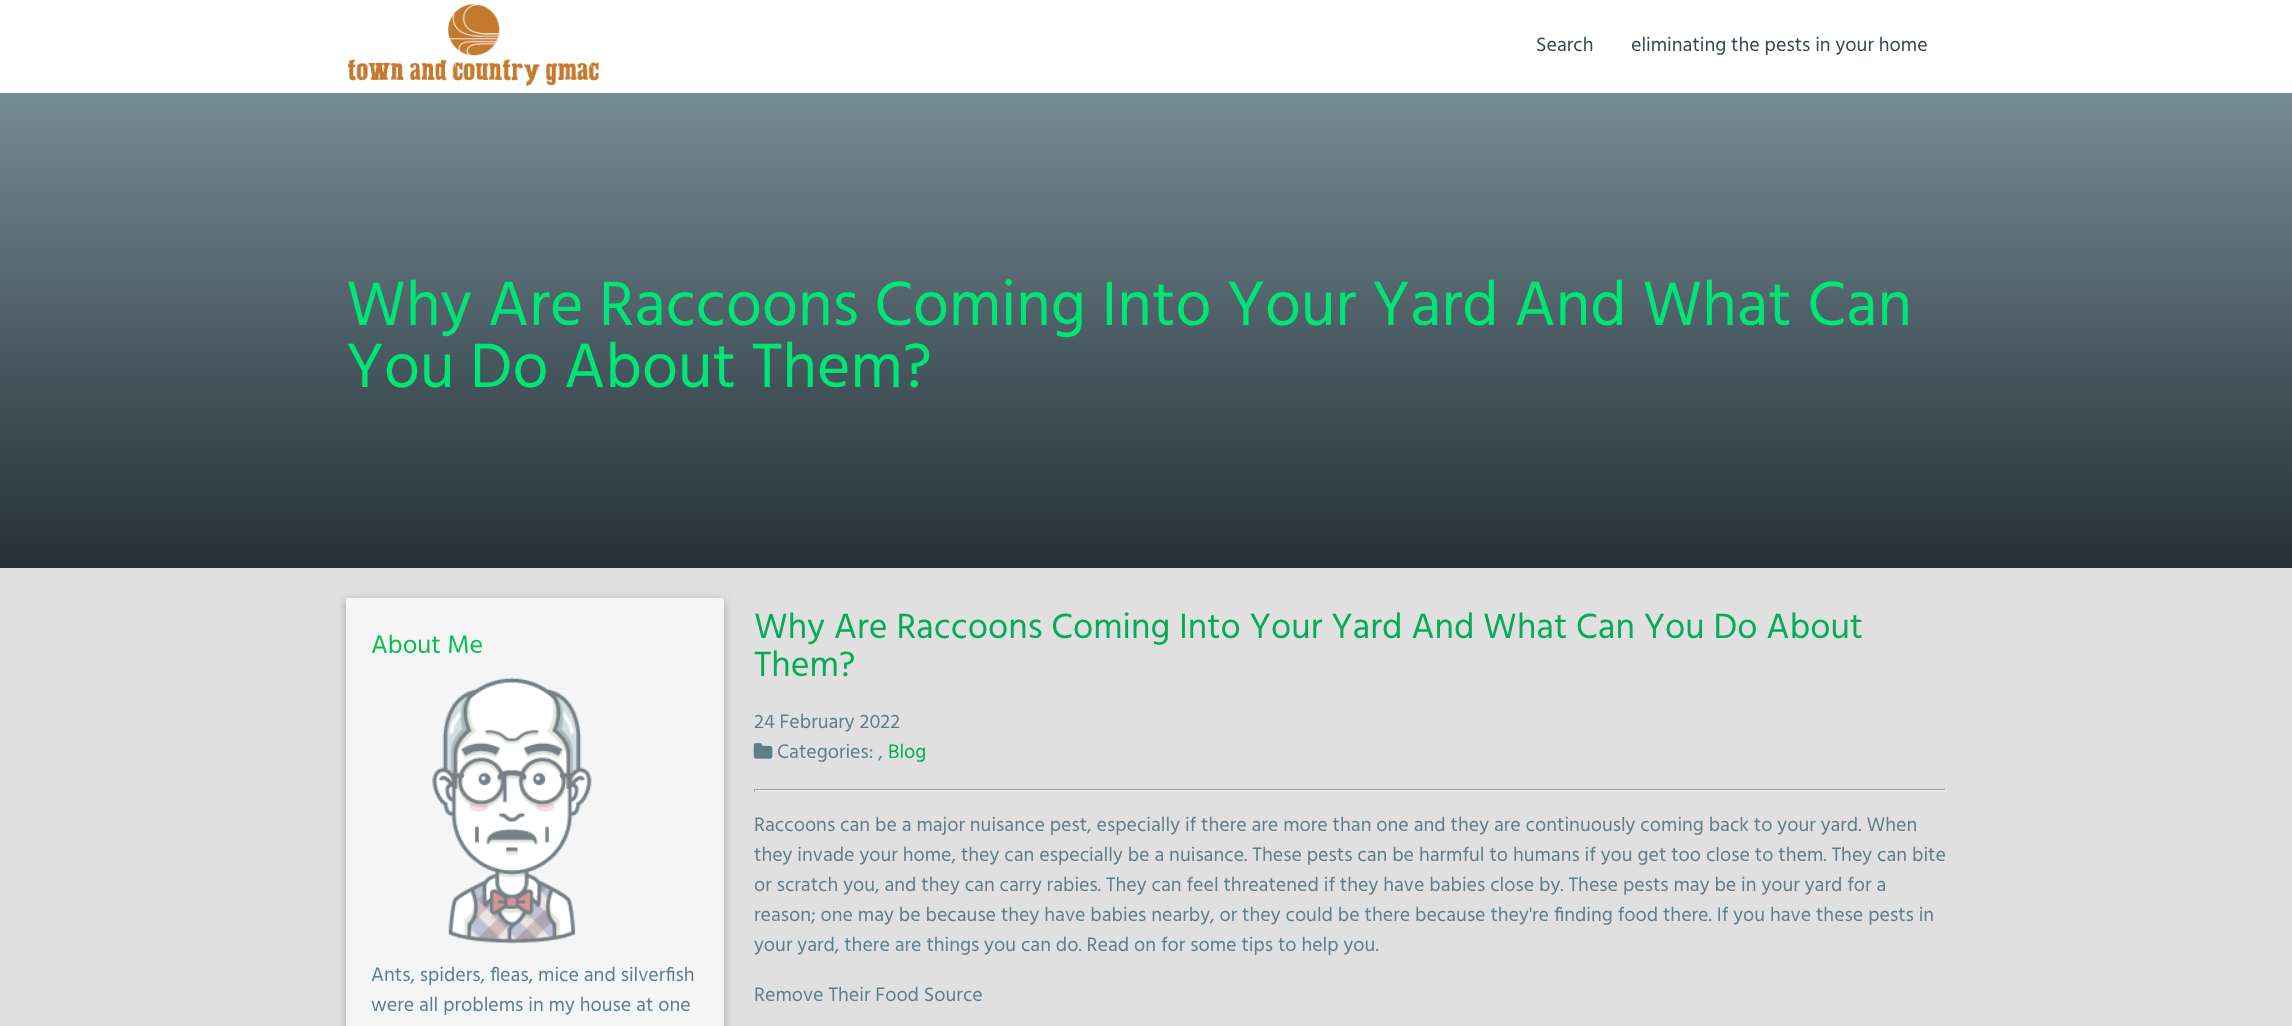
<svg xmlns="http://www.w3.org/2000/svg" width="2292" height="1026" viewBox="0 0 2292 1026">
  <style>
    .t1 { font: 20px Hind; fill: #37474f; }
    .t2 { font: 64px Hind; fill: #00e676; }
    .t3 { font: 26px Hind; fill: #07be54; }
    .t4 { font: 20px Hind; fill: #607d8b; }
    .t5 { font: 36px Hind; fill: #05ab58; }
    .t6 { font: 20px Hind; fill: #05ab58; }
  </style>
  <defs>
    <linearGradient id="g1" gradientUnits="userSpaceOnUse" x1="1146" y1="92" x2="1146" y2="568"><stop offset="0" stop-color="#758b96"/><stop offset="1" stop-color="#253035"/></linearGradient>
  </defs>
  <rect width="100%" height="100%" fill="#fff"/>
  <image x="348" y="4" width="251" height="83" href="images/1.png"/>
  <text x="1536" y="51" class="t1">Search</text>
  <text x="1631" y="51" class="t1">eliminating the pests in your home</text>
  <rect x="0" y="93" width="2292" height="475" fill="url(#g1)"/>
  <text x="346" y="325" class="t2">Why Are Raccoons Coming Into Your Yard And What Can</text>
  <text x="346" y="387" class="t2">You Do About Them?</text>
  <rect x="0" y="568" width="2292" height="458" fill="#e0e0e0"/>
  <rect x="346" y="600" width="378" height="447" rx="2.5" fill="#0000001f" filter="blur(6px)"/>
  <rect x="346" y="600" width="378" height="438" rx="2.5" fill="#00000029" filter="blur(3px)"/>
  <rect x="346" y="598" width="378" height="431" rx="2.5" fill="#f5f5f5"/>
  <text x="371" y="653" class="t3">About Me</text>
  <image x="432" y="677" width="160" height="267" href="images/2.png"/>
  <text x="371" y="981" class="t4">Ants, spiders, fleas, mice and silverfish</text>
  <text x="371" y="1011" class="t4">were all problems in my house at one</text>
  <text x="754" y="638" class="t5">Why Are Raccoons Coming Into Your Yard And What Can You Do About</text>
  <text x="754" y="676" class="t5">Them?</text>
  <text x="754" y="728" class="t4">24 February 2022</text>
  <image x="753" y="743" width="20" height="16" href="images/3.png"/>
  <text x="777" y="758" class="t4">Categories: ,</text>
  <text x="888" y="758" class="t6">Blog</text>
  <rect x="754" y="789" width="1192" height="1" fill="#9f9f9f"/>
  <rect x="1945" y="789" width="1" height="3" fill="#eee"/>
  <rect x="754" y="790" width="1192" height="1" fill="#eee"/>
  <rect x="754" y="789" width="1" height="3" fill="#9f9f9f"/>
  <text x="754" y="831" class="t4">Raccoons can be a major nuisance pest, especially if there are more than one and they are continuously coming back to your yard. When</text>
  <text x="754" y="861" class="t4">they invade your home, they can especially be a nuisance. These pests can be harmful to humans if you get too close to them. They can bite</text>
  <text x="754" y="891" class="t4">or scratch you, and they can carry rabies. They can feel threatened if they have babies close by. These pests may be in your yard for a</text>
  <text x="754" y="921" class="t4">reason; one may be because they have babies nearby, or they could be there because they're finding food there. If you have these pests in</text>
  <text x="754" y="951" class="t4">your yard, there are things you can do. Read on for some tips to help you.</text>
  <text x="754" y="1001" class="t4">Remove Their Food Source</text>
</svg>
